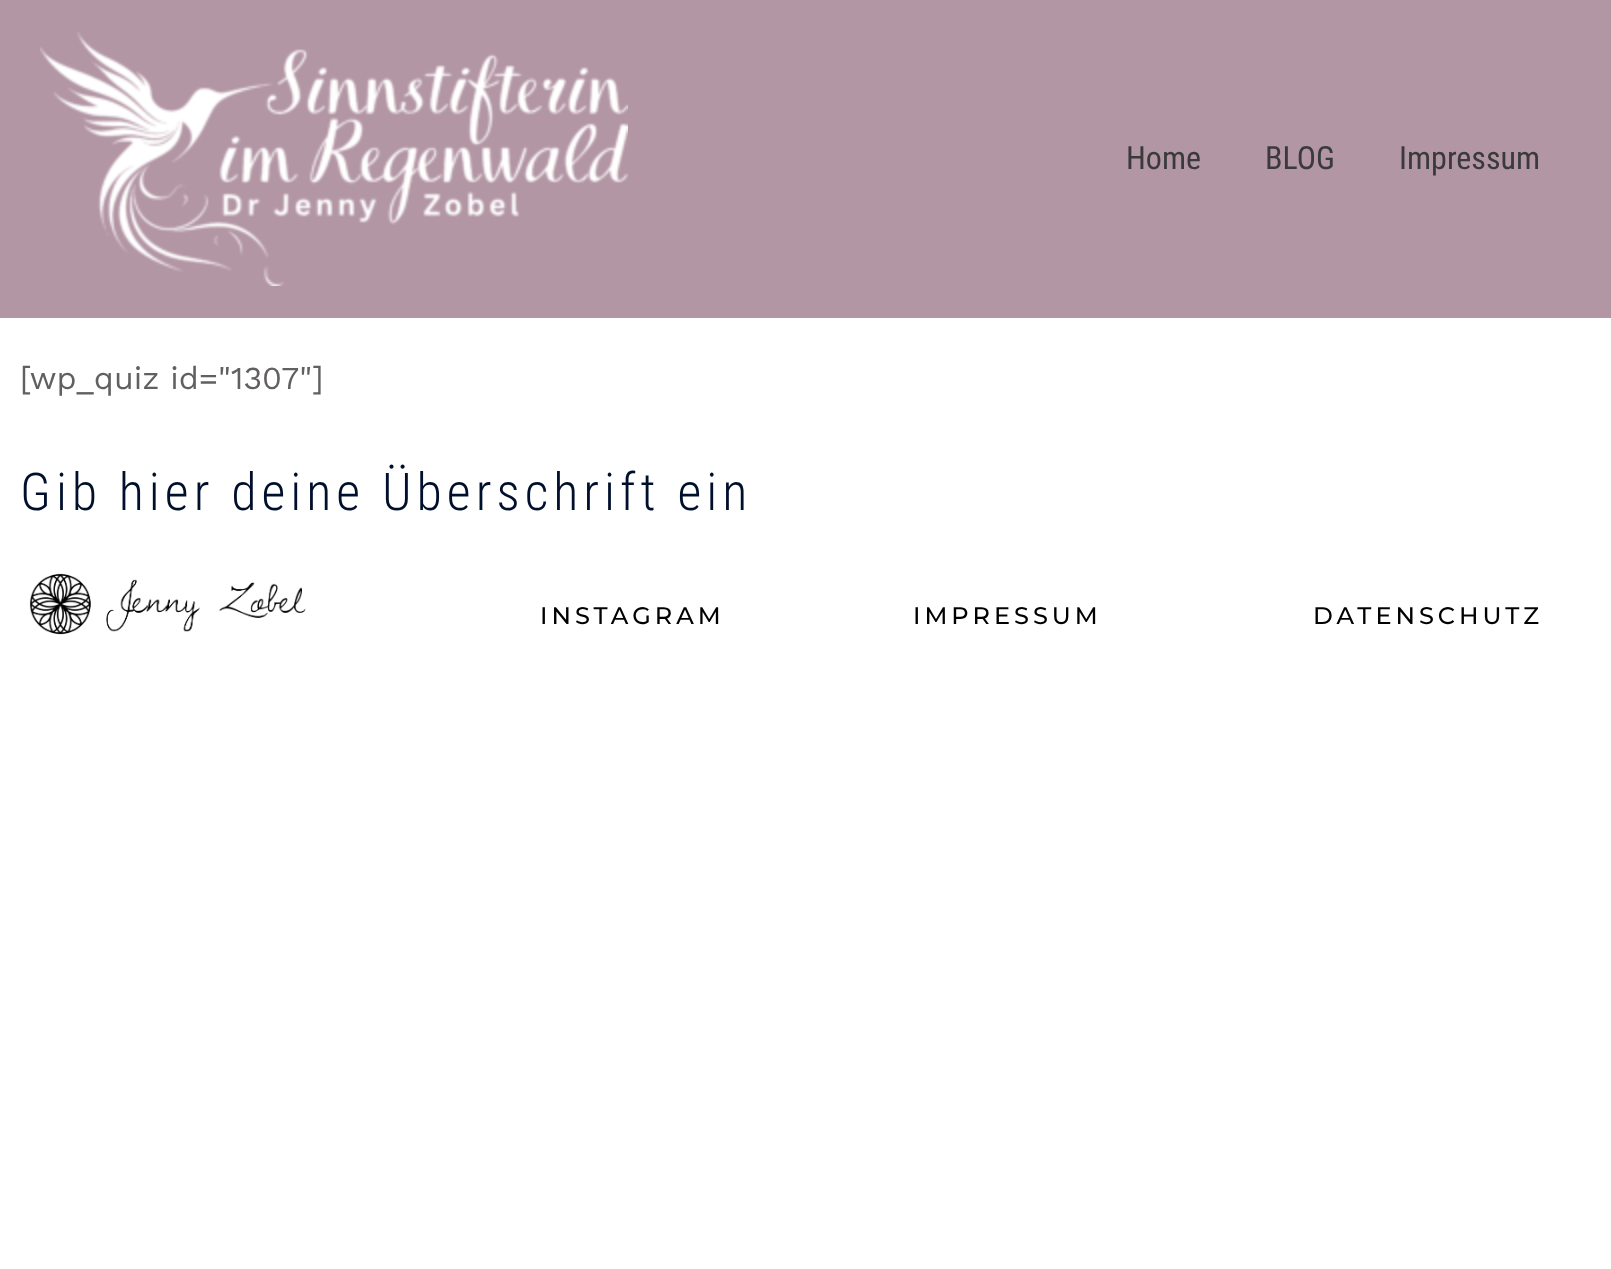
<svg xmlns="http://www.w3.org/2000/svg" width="1611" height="1269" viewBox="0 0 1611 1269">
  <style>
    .t1 { font: 32px Roboto Condensed; fill: #3a3a3a; }
    .t2 { font: 32px Work Sans; fill: #625f5f; }
    .t3 { font: 300 52px Roboto Condensed; letter-spacing: 5px; fill: #000f2b; }
    .t4 { font: 100 24px Montserrat; letter-spacing: 4px; fill: #000; }
  </style>
  <rect width="100%" height="100%" fill="#fff"/>
  <rect x="0" y="0" width="1611" height="318" fill="#b396a4"/>
  <image x="40" y="32" width="588" height="254" href="images/1.png"/>
  <text x="1126" y="169" class="t1">Home</text>
  <text x="1265" y="169" class="t1">BLOG</text>
  <text x="1399" y="169" class="t1">Impressum</text>
  <text x="20" y="389" class="t2">[wp_quiz id="1307"]</text>
  <text x="20" y="510" class="t3">Gib hier deine Überschrift ein</text>
  <image x="29" y="573" width="277" height="62" href="images/2.png"/>
  <text x="540" y="624" class="t4">INSTAGRAM</text>
  <text x="913" y="624" class="t4">IMPRESSUM</text>
  <text x="1313" y="624" class="t4">DATENSCHUTZ</text>
</svg>
